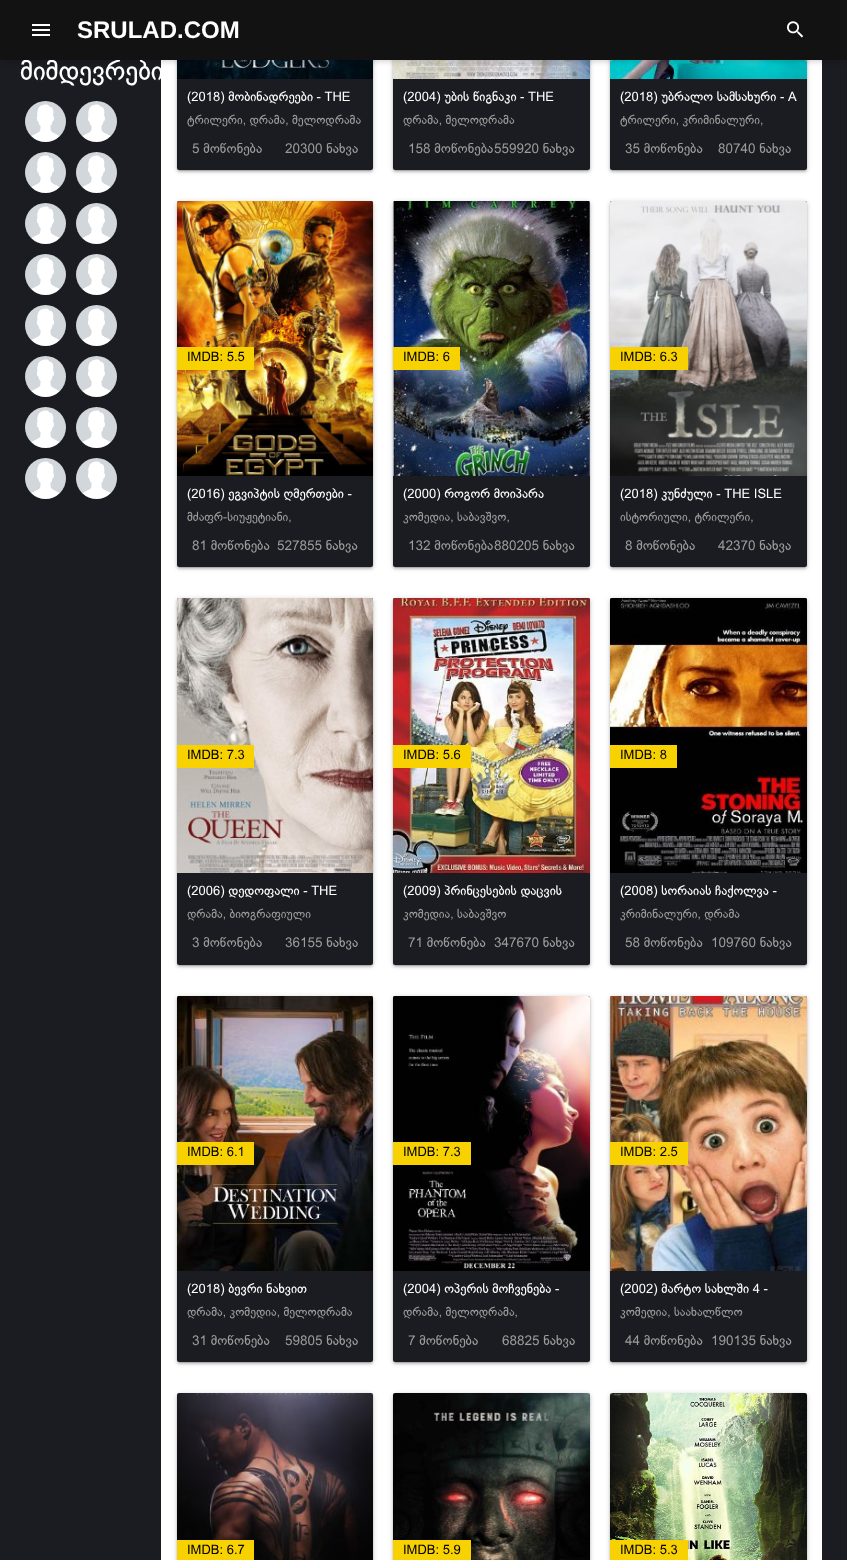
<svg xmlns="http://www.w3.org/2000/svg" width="847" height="1560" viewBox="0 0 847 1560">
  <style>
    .t1 { font: 27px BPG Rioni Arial; fill: #fff; }
    .t2 { font: bold 24px Liberation Sans; fill: #fff; }
    .t3 { font: 13px BPG Rioni Arial; fill: #fff; }
    .t4 { font: 12.2px BPG Rioni Arial; fill: #9c9c9c; }
    .t5 { font: 13.5px BPG Rioni Arial; fill: #9c9c9c; }
    .t6 { font: 13px BPG Rioni Arial; fill: #000; }
  </style>
  <rect width="100%" height="100%" fill="#1a1c21"/>
  <rect x="161" y="60" width="661" height="1500" fill="#fff"/>
  <rect x="177" y="-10" width="196" height="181" rx="2" fill="#00000033" filter="blur(2.5px)"/>
  <rect x="179" y="-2" width="192" height="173" fill="#0000001f" filter="blur(0.5px)"/>
  <rect x="177" y="-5" width="196" height="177" rx="2" fill="#00000024" filter="blur(1px)"/>
  <rect x="177" y="-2" width="196" height="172" rx="2" fill="#1a1c21"/>
  <image x="177" y="60" width="196" height="19" href="images/3.png"/>
  <rect x="393" y="-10" width="197" height="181" rx="2" fill="#00000033" filter="blur(2.5px)"/>
  <rect x="395" y="-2" width="193" height="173" fill="#0000001f" filter="blur(0.5px)"/>
  <rect x="393" y="-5" width="197" height="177" rx="2" fill="#00000024" filter="blur(1px)"/>
  <rect x="393" y="-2" width="197" height="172" rx="2" fill="#1a1c21"/>
  <image x="393" y="60" width="197" height="19" href="images/4.png"/>
  <rect x="610" y="-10" width="197" height="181" rx="2" fill="#00000033" filter="blur(2.5px)"/>
  <rect x="612" y="-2" width="193" height="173" fill="#0000001f" filter="blur(0.5px)"/>
  <rect x="610" y="-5" width="197" height="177" rx="2" fill="#00000024" filter="blur(1px)"/>
  <rect x="610" y="-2" width="197" height="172" rx="2" fill="#1a1c21"/>
  <image x="610" y="60" width="197" height="19" href="images/5.png"/>
  <rect x="3" y="8" width="841" height="54" fill="#00000026" filter="blur(2.5px)"/>
  <text x="20" y="80" class="t1">მიმდევრები</text>
  <rect x="0" y="0" width="847" height="60" fill="#121212"/>
  <rect x="32" y="24" width="18" height="2" fill="#fff"/>
  <rect x="32" y="29" width="18" height="2" fill="#fff"/>
  <rect x="32" y="34" width="18" height="2" fill="#fff"/>
  <text x="77" y="38" class="t2">SRULAD.COM</text>
  <image x="787" y="21" width="17" height="17" href="images/1.png"/>
  <image x="25" y="101" width="41" height="41" href="images/2.png"/>
  <image x="76" y="101" width="41" height="41" href="images/2.png"/>
  <image x="25" y="152" width="41" height="41" href="images/2.png"/>
  <image x="76" y="152" width="41" height="41" href="images/2.png"/>
  <image x="25" y="203" width="41" height="41" href="images/2.png"/>
  <image x="76" y="203" width="41" height="41" href="images/2.png"/>
  <image x="25" y="254" width="41" height="41" href="images/2.png"/>
  <image x="76" y="254" width="41" height="41" href="images/2.png"/>
  <image x="25" y="305" width="41" height="41" href="images/2.png"/>
  <image x="76" y="305" width="41" height="41" href="images/2.png"/>
  <image x="25" y="356" width="41" height="41" href="images/2.png"/>
  <image x="76" y="356" width="41" height="41" href="images/2.png"/>
  <image x="25" y="407" width="41" height="41" href="images/2.png"/>
  <image x="76" y="407" width="41" height="41" href="images/2.png"/>
  <image x="25" y="458" width="41" height="41" href="images/2.png"/>
  <image x="76" y="458" width="41" height="41" href="images/2.png"/>
  <text x="187" y="101" class="t3">(2018) მობინადრეები - THE</text>
  <text x="187" y="124" class="t4">ტრილერი, დრამა, მელოდრამა</text>
  <text x="192" y="153" class="t5">5 მოწონება</text>
  <text x="285" y="153" class="t5">20300 ნახვა</text>
  <text x="403" y="101" class="t3">(2004) უბის წიგნაკი - THE</text>
  <text x="403" y="124" class="t4">დრამა, მელოდრამა</text>
  <text x="408" y="153" class="t5">158 მოწონება</text>
  <text x="494" y="153" class="t5">559920 ნახვა</text>
  <text x="620" y="101" class="t3">(2018) უბრალო სამსახური - A</text>
  <text x="620" y="124" class="t4">ტრილერი, კრიმინალური,</text>
  <text x="625" y="153" class="t5">35 მოწონება</text>
  <text x="718" y="153" class="t5">80740 ნახვა</text>
  <rect x="177" y="202" width="196" height="366" rx="2" fill="#00000033" filter="blur(2.5px)"/>
  <rect x="179" y="206" width="192" height="362" fill="#0000001f" filter="blur(0.5px)"/>
  <rect x="177" y="203" width="196" height="366" rx="2" fill="#00000024" filter="blur(1px)"/>
  <rect x="177" y="201" width="196" height="366" rx="2" fill="#1a1c21"/>
  <image x="177" y="201" width="196" height="275" href="images/6.png"/>
  <rect x="177" y="347" width="77" height="23" fill="#f7d100"/>
  <text x="187" y="361" class="t6">IMDB: 5.5</text>
  <text x="187" y="498" class="t3">(2016) ეგვიპტის ღმერთები -</text>
  <text x="187" y="521" class="t4">მძაფრ-სიუჟეტიანი,</text>
  <text x="192" y="550" class="t5">81 მოწონება</text>
  <text x="277" y="550" class="t5">527855 ნახვა</text>
  <rect x="393" y="202" width="197" height="366" rx="2" fill="#00000033" filter="blur(2.5px)"/>
  <rect x="395" y="206" width="193" height="362" fill="#0000001f" filter="blur(0.5px)"/>
  <rect x="393" y="203" width="197" height="366" rx="2" fill="#00000024" filter="blur(1px)"/>
  <rect x="393" y="201" width="197" height="366" rx="2" fill="#1a1c21"/>
  <image x="393" y="201" width="197" height="275" href="images/7.png"/>
  <rect x="393" y="347" width="67" height="23" fill="#f7d100"/>
  <text x="403" y="361" class="t6">IMDB: 6</text>
  <text x="403" y="498" class="t3">(2000) როგორ მოიპარა</text>
  <text x="403" y="521" class="t4">კომედია, საბავშვო,</text>
  <text x="408" y="550" class="t5">132 მოწონება</text>
  <text x="494" y="550" class="t5">880205 ნახვა</text>
  <rect x="610" y="202" width="197" height="366" rx="2" fill="#00000033" filter="blur(2.5px)"/>
  <rect x="612" y="206" width="193" height="362" fill="#0000001f" filter="blur(0.5px)"/>
  <rect x="610" y="203" width="197" height="366" rx="2" fill="#00000024" filter="blur(1px)"/>
  <rect x="610" y="201" width="197" height="366" rx="2" fill="#1a1c21"/>
  <image x="610" y="201" width="197" height="275" href="images/8.png"/>
  <rect x="610" y="347" width="78" height="23" fill="#f7d100"/>
  <text x="620" y="361" class="t6">IMDB: 6.3</text>
  <text x="620" y="498" class="t3">(2018) კუნძული - THE ISLE</text>
  <text x="620" y="521" class="t4">ისტორიული, ტრილერი,</text>
  <text x="625" y="550" class="t5">8 მოწონება</text>
  <text x="718" y="550" class="t5">42370 ნახვა</text>
  <rect x="177" y="599" width="196" height="367" rx="2" fill="#00000033" filter="blur(2.5px)"/>
  <rect x="179" y="603" width="192" height="363" fill="#0000001f" filter="blur(0.5px)"/>
  <rect x="177" y="600" width="196" height="367" rx="2" fill="#00000024" filter="blur(1px)"/>
  <rect x="177" y="598" width="196" height="367" rx="2" fill="#1a1c21"/>
  <image x="177" y="598" width="196" height="275" href="images/9.png"/>
  <rect x="177" y="745" width="77" height="23" fill="#f7d100"/>
  <text x="187" y="759" class="t6">IMDB: 7.3</text>
  <text x="187" y="895" class="t3">(2006) დედოფალი - THE</text>
  <text x="187" y="918" class="t4">დრამა, ბიოგრაფიული</text>
  <text x="192" y="947" class="t5">3 მოწონება</text>
  <text x="285" y="947" class="t5">36155 ნახვა</text>
  <rect x="393" y="599" width="197" height="367" rx="2" fill="#00000033" filter="blur(2.5px)"/>
  <rect x="395" y="603" width="193" height="363" fill="#0000001f" filter="blur(0.5px)"/>
  <rect x="393" y="600" width="197" height="367" rx="2" fill="#00000024" filter="blur(1px)"/>
  <rect x="393" y="598" width="197" height="367" rx="2" fill="#1a1c21"/>
  <image x="393" y="598" width="197" height="275" href="images/10.png"/>
  <rect x="393" y="745" width="78" height="23" fill="#f7d100"/>
  <text x="403" y="759" class="t6">IMDB: 5.6</text>
  <text x="403" y="895" class="t3">(2009) პრინცესების დაცვის</text>
  <text x="403" y="918" class="t4">კომედია, საბავშვო</text>
  <text x="408" y="947" class="t5">71 მოწონება</text>
  <text x="494" y="947" class="t5">347670 ნახვა</text>
  <rect x="610" y="599" width="197" height="367" rx="2" fill="#00000033" filter="blur(2.5px)"/>
  <rect x="612" y="603" width="193" height="363" fill="#0000001f" filter="blur(0.5px)"/>
  <rect x="610" y="600" width="197" height="367" rx="2" fill="#00000024" filter="blur(1px)"/>
  <rect x="610" y="598" width="197" height="367" rx="2" fill="#1a1c21"/>
  <image x="610" y="598" width="197" height="275" href="images/11.png"/>
  <rect x="610" y="745" width="67" height="23" fill="#f7d100"/>
  <text x="620" y="759" class="t6">IMDB: 8</text>
  <text x="620" y="895" class="t3">(2008) სორაიას ჩაქოლვა -</text>
  <text x="620" y="918" class="t4">კრიმინალური, დრამა</text>
  <text x="625" y="947" class="t5">58 მოწონება</text>
  <text x="711" y="947" class="t5">109760 ნახვა</text>
  <rect x="177" y="997" width="196" height="366" rx="2" fill="#00000033" filter="blur(2.5px)"/>
  <rect x="179" y="1001" width="192" height="362" fill="#0000001f" filter="blur(0.5px)"/>
  <rect x="177" y="998" width="196" height="366" rx="2" fill="#00000024" filter="blur(1px)"/>
  <rect x="177" y="996" width="196" height="366" rx="2" fill="#1a1c21"/>
  <image x="177" y="996" width="196" height="275" href="images/12.png"/>
  <rect x="177" y="1142" width="77" height="23" fill="#f7d100"/>
  <text x="187" y="1156" class="t6">IMDB: 6.1</text>
  <text x="187" y="1293" class="t3">(2018) ბევრი ნახვით</text>
  <text x="187" y="1316" class="t4">დრამა, კომედია, მელოდრამა</text>
  <text x="192" y="1345" class="t5">31 მოწონება</text>
  <text x="285" y="1345" class="t5">59805 ნახვა</text>
  <rect x="393" y="997" width="197" height="366" rx="2" fill="#00000033" filter="blur(2.5px)"/>
  <rect x="395" y="1001" width="193" height="362" fill="#0000001f" filter="blur(0.5px)"/>
  <rect x="393" y="998" width="197" height="366" rx="2" fill="#00000024" filter="blur(1px)"/>
  <rect x="393" y="996" width="197" height="366" rx="2" fill="#1a1c21"/>
  <image x="393" y="996" width="197" height="275" href="images/13.png"/>
  <rect x="393" y="1142" width="78" height="23" fill="#f7d100"/>
  <text x="403" y="1156" class="t6">IMDB: 7.3</text>
  <text x="403" y="1293" class="t3">(2004) ოპერის მოჩვენება -</text>
  <text x="403" y="1316" class="t4">დრამა, მელოდრამა,</text>
  <text x="408" y="1345" class="t5">7 მოწონება</text>
  <text x="502" y="1345" class="t5">68825 ნახვა</text>
  <rect x="610" y="997" width="197" height="366" rx="2" fill="#00000033" filter="blur(2.5px)"/>
  <rect x="612" y="1001" width="193" height="362" fill="#0000001f" filter="blur(0.5px)"/>
  <rect x="610" y="998" width="197" height="366" rx="2" fill="#00000024" filter="blur(1px)"/>
  <rect x="610" y="996" width="197" height="366" rx="2" fill="#1a1c21"/>
  <image x="610" y="996" width="197" height="275" href="images/14.png"/>
  <rect x="610" y="1142" width="78" height="23" fill="#f7d100"/>
  <text x="620" y="1156" class="t6">IMDB: 2.5</text>
  <text x="620" y="1293" class="t3">(2002) მარტო სახლში 4 -</text>
  <text x="620" y="1316" class="t4">კომედია, საახალწლო</text>
  <text x="625" y="1345" class="t5">44 მოწონება</text>
  <text x="711" y="1345" class="t5">190135 ნახვა</text>
  <rect x="177" y="1394" width="196" height="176" rx="2" fill="#00000033" filter="blur(2.5px)"/>
  <rect x="177" y="1395" width="196" height="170" rx="2" fill="#00000024" filter="blur(1px)"/>
  <image x="177" y="1393" width="196" height="167" href="images/15.png"/>
  <rect x="177" y="1540" width="77" height="20" fill="#f7d100"/>
  <text x="187" y="1554" class="t6">IMDB: 6.7</text>
  <rect x="393" y="1394" width="197" height="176" rx="2" fill="#00000033" filter="blur(2.5px)"/>
  <rect x="393" y="1395" width="197" height="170" rx="2" fill="#00000024" filter="blur(1px)"/>
  <image x="393" y="1393" width="197" height="167" href="images/16.png"/>
  <rect x="393" y="1540" width="78" height="20" fill="#f7d100"/>
  <text x="403" y="1554" class="t6">IMDB: 5.9</text>
  <rect x="610" y="1394" width="197" height="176" rx="2" fill="#00000033" filter="blur(2.5px)"/>
  <rect x="610" y="1395" width="197" height="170" rx="2" fill="#00000024" filter="blur(1px)"/>
  <image x="610" y="1393" width="197" height="167" href="images/17.png"/>
  <rect x="610" y="1540" width="78" height="20" fill="#f7d100"/>
  <text x="620" y="1554" class="t6">IMDB: 5.3</text>
</svg>
